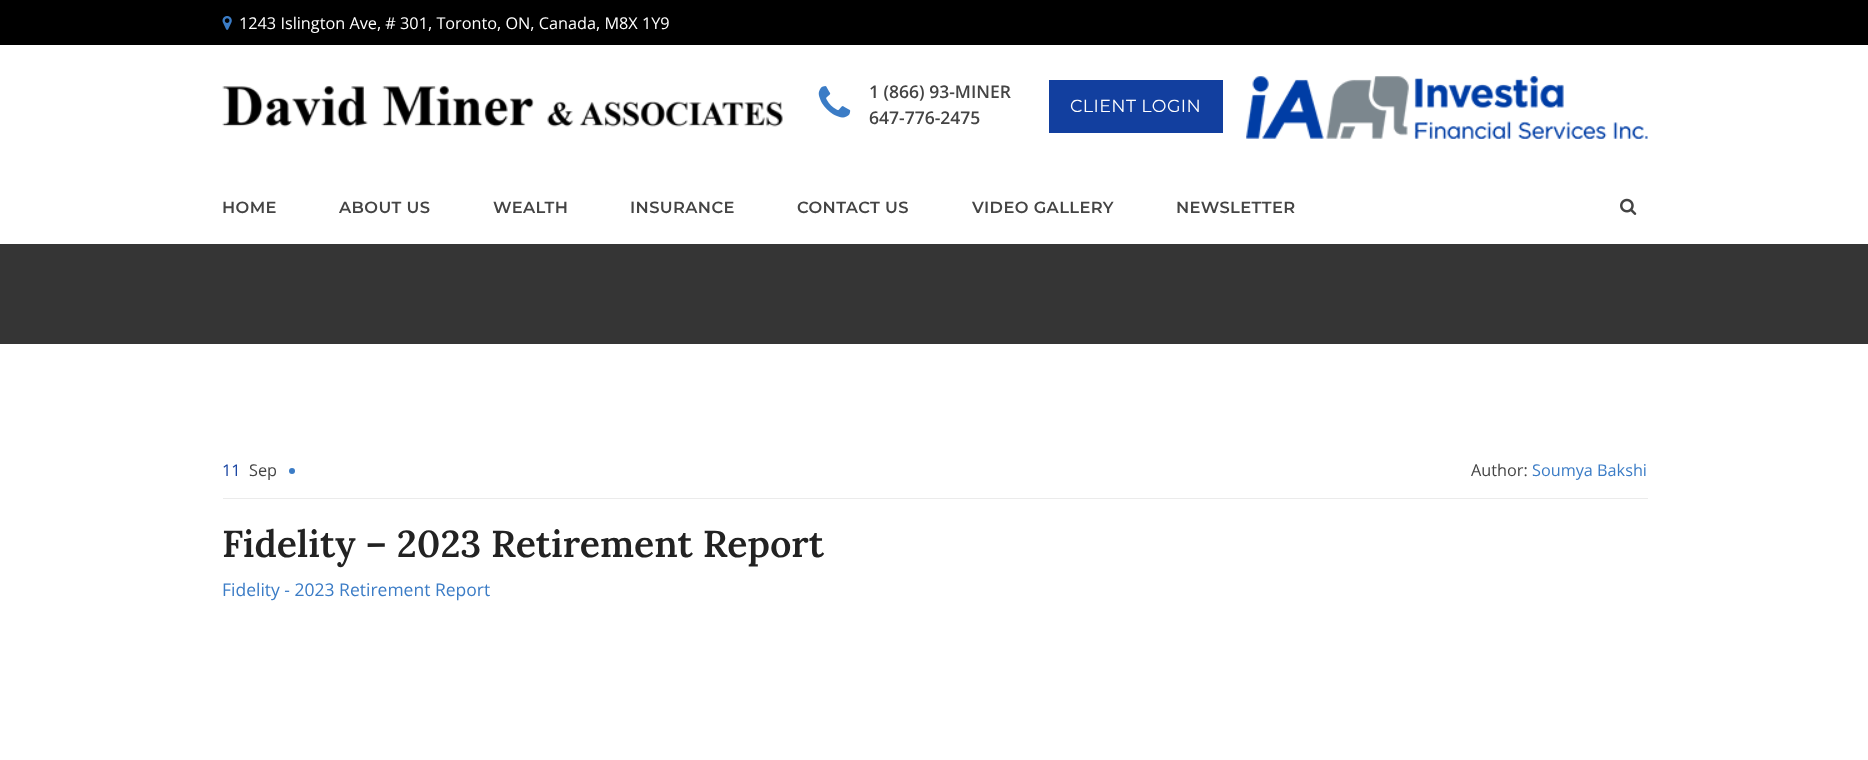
<svg xmlns="http://www.w3.org/2000/svg" width="1868" height="760" viewBox="0 0 1868 760">
  <style>
    .t1 { font: 16.25px Open Sans; fill: #fff; }
    .t2 { font: 600 17.5px Open Sans; fill: #444; }
    .t3 { font: 17.5px Montserrat; letter-spacing: 0.4px; fill: #fff; }
    .t4 { font: 600 16.25px Montserrat; letter-spacing: 0.4px; fill: #444; }
    .t5 { font: 16.25px Open Sans; fill: #123f9f; }
    .t6 { font: 16.25px Open Sans; fill: #444; }
    .t7 { font: 16.25px Open Sans; fill: #3b7cc6; }
    .t8 { font: 600 37.5px Lora; fill: #222; }
    .t9 { font: 17.5px Open Sans; fill: #3b7cc6; }
  </style>
  <rect width="100%" height="100%" fill="#fff"/>
  <rect x="0" y="0" width="1868" height="45" fill="#000"/>
  <image x="222" y="16" width="10" height="14" href="images/1.png"/>
  <text x="239" y="29" class="t1">1243 Islington Ave, # 301, Toronto, ON, Canada, M8X 1Y9</text>
  <image x="222" y="85" width="561" height="42" href="images/2.png"/>
  <image x="818" y="86" width="33" height="32" href="images/3.png"/>
  <text x="869" y="98" class="t2">1 (866) 93-MINER</text>
  <text x="869" y="124" class="t2">647-776-2475</text>
  <rect x="1049" y="80" width="174" height="53" fill="#123f9f"/>
  <text x="1070" y="112" class="t3">CLIENT LOGIN</text>
  <image x="1246" y="76" width="402" height="63" href="images/4.png"/>
  <text x="222" y="213" class="t4">HOME</text>
  <text x="339" y="213" class="t4">ABOUT US</text>
  <text x="493" y="213" class="t4">WEALTH</text>
  <text x="630" y="213" class="t4">INSURANCE</text>
  <text x="797" y="213" class="t4">CONTACT US</text>
  <text x="972" y="213" class="t4">VIDEO GALLERY</text>
  <text x="1176" y="213" class="t4">NEWSLETTER</text>
  <image x="1620" y="198" width="17" height="17" href="images/5.png"/>
  <rect x="0" y="244" width="1868" height="100" fill="#353535"/>
  <rect x="223" y="498" width="1425" height="1" fill="#ebebeb"/>
  <text x="222" y="476" class="t5">11</text>
  <text x="249" y="476" class="t6">Sep</text>
  <circle cx="292" cy="471" r="3" fill="#3b7cc6"/>
  <text x="1471" y="476" class="t6">Author:</text>
  <text x="1532" y="476" class="t7">Soumya Bakshi</text>
  <text x="222" y="557" class="t8">Fidelity – 2023 Retirement Report</text>
  <text x="222" y="596" class="t9">Fidelity - 2023 Retirement Report</text>
</svg>
